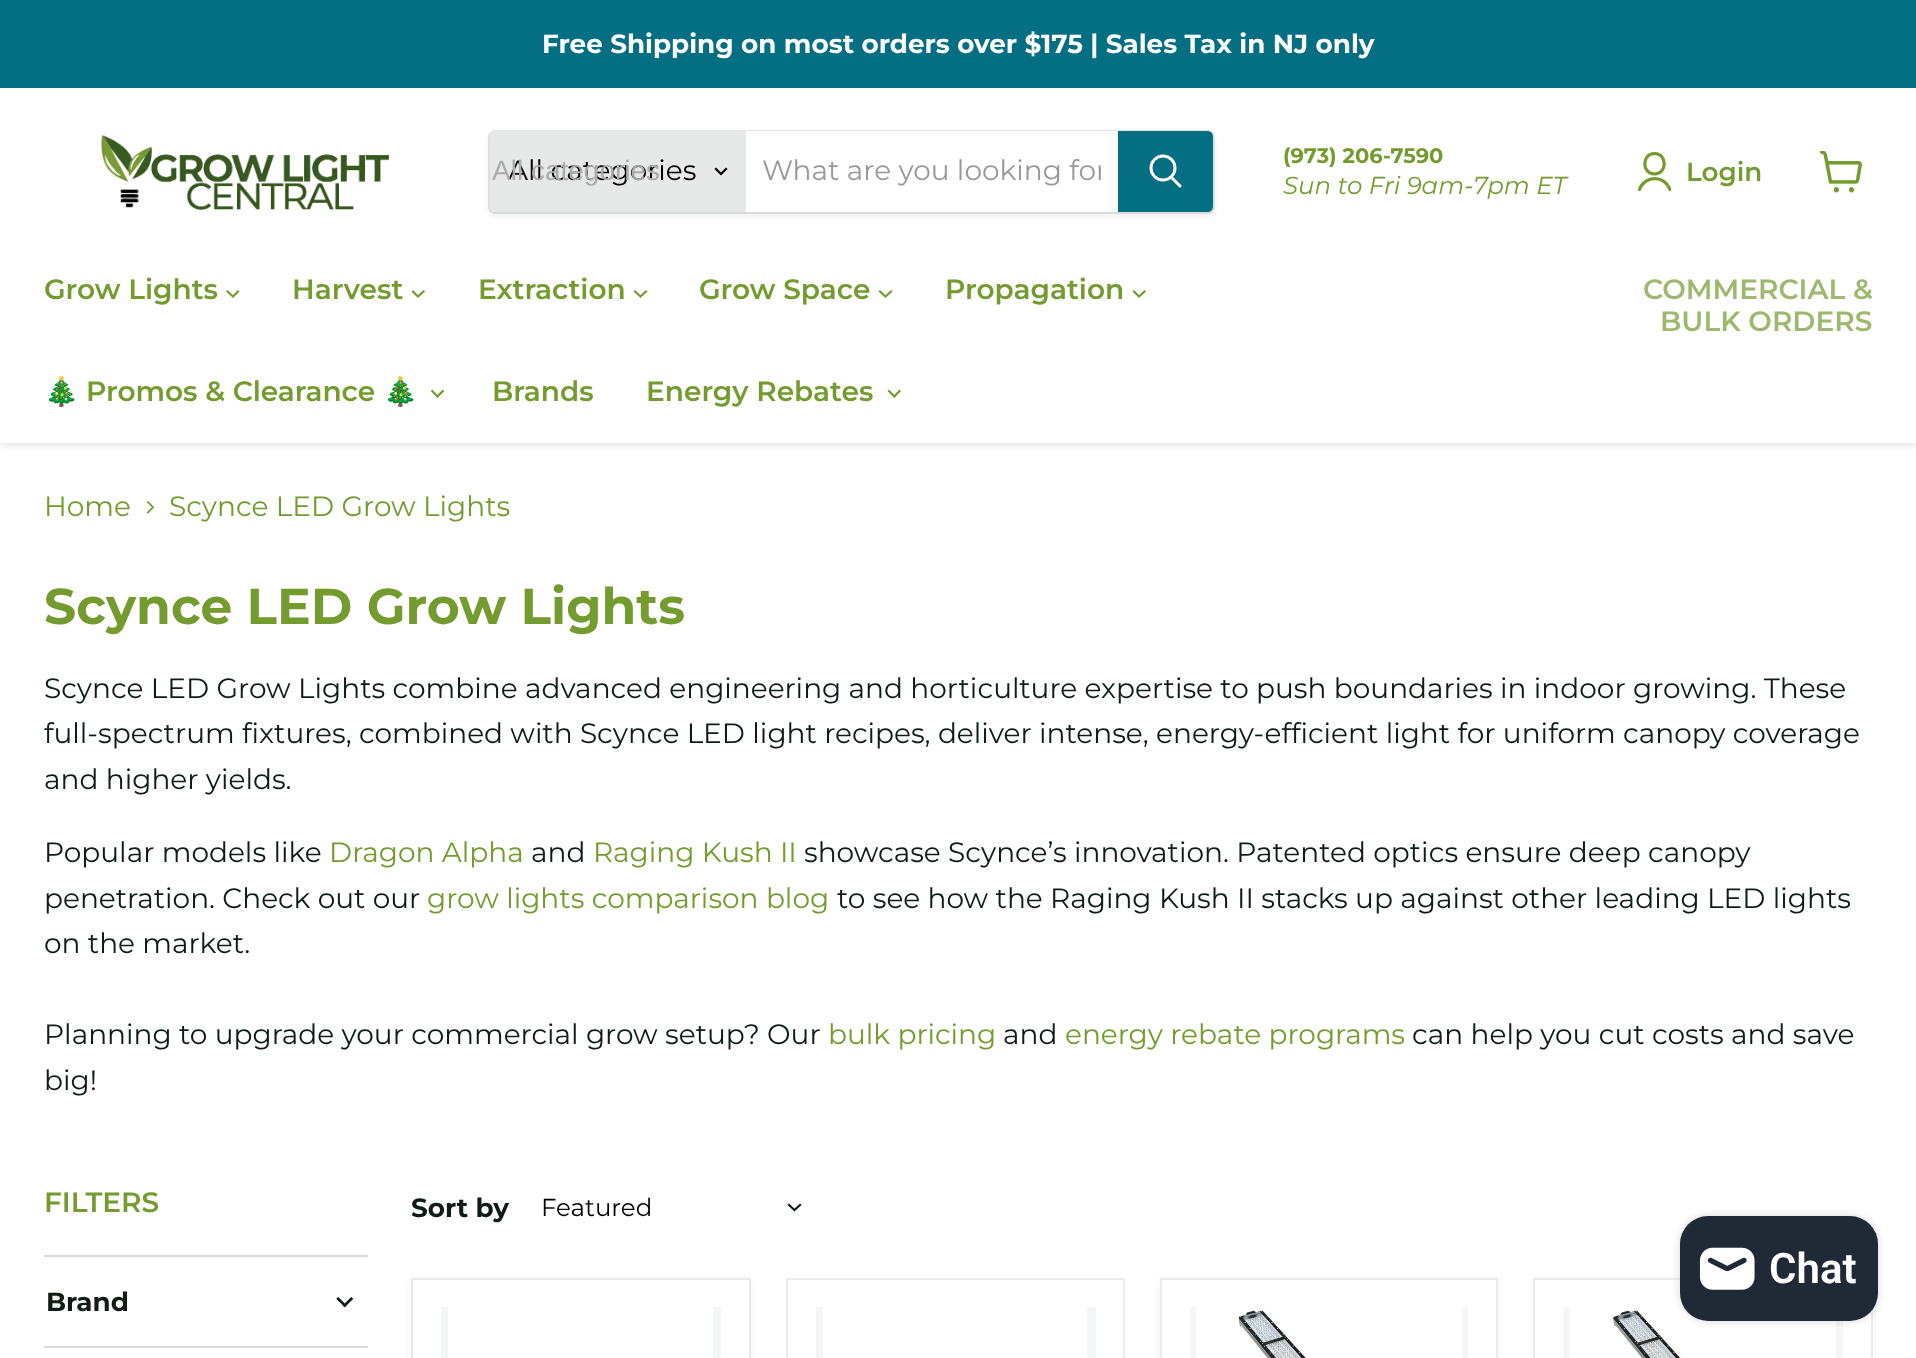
<svg xmlns="http://www.w3.org/2000/svg" width="1916" height="1358" viewBox="0 0 1916 1358">
  <style>
    .t1 { font: bold 26.25px Montserrat; fill: #fff; }
    .t2 { font: 100 28px Montserrat; fill: #000; }
    .t3 { font: 28px Liberation Sans; fill: #ababab; }
    .t4 { font: 100 28px Montserrat; fill: #999; }
    .t5 { font: bold 21px Montserrat; fill: #749b2e; }
    .t6 { font: italic 24.5px Montserrat; fill: #749b2e; }
    .t7 { font: 600 26.25px Montserrat; fill: #749b2e; }
    .t8 { font: 600 28px Montserrat; fill: #749b2e; }
    .t9 { font: bold 28px Noto Color Emoji; fill: #749b2e; }
    .t10 { font: 600 28px Montserrat; fill: #9eb96d; }
    .t11 { font: 100 28px Montserrat; fill: #749b2e; }
    .t12 { font: bold 50.4px Montserrat; fill: #749b2e; }
    .t13 { font: 100 28px Montserrat; fill: #0e1c14; }
    .t14 { font: bold 26.25px Montserrat; fill: #0e1c14; }
    .t15 { font: 100 24.5px Montserrat; fill: #000; }
    .t16 { font: 600 42px Roboto; fill: #fff; }
  </style>
  <defs>
    <clipPath id="clip1"><rect x="763" y="154" width="338" height="33"/></clipPath>
    <clipPath id="clip2"><rect x="1636" y="151" width="35" height="42"/></clipPath>
  </defs>
  <rect width="100%" height="100%" fill="#fff"/>
  <rect x="0" y="89" width="1916" height="356" fill="#80808040" filter="blur(3.5px)"/>
  <rect x="0" y="0" width="1916" height="88" fill="#046e82"/>
  <text x="542" y="53" class="t1">Free Shipping on most orders over $175 | Sales Tax in NJ only</text>
  <rect x="0" y="88" width="1916" height="355" fill="#fff"/>
  <image x="101" y="135" width="288" height="75" href="images/1.png"/>
  <rect x="488" y="133" width="727" height="84" rx="7" fill="#8080801c" filter="blur(2.5px)"/>
  <rect x="489" y="131" width="725" height="82" rx="6" fill="none" stroke="#80808033" stroke-width="2"/>
  <path d="M495 131H746V212H495C492 212 490 210 490 207V136C490 133 492 131 495 131Z" fill="#e7e8e8"/>
  <text x="508" y="180" class="t2">All categories</text>
  <text x="492" y="180" class="t3">All categories</text>
  <path d="M721 174L726 169M721 174L716 169" fill="none" stroke="#000" stroke-width="2.2" stroke-linecap="square"/>
  <rect x="746" y="131" width="372" height="81" fill="#fff"/>
  <g clip-path="url(#clip1)">
    <text x="762" y="180" class="t4">What are you looking for</text>
  </g>
  <path d="M1119 132H1208C1210 132 1212 134 1212 136V207C1212 209 1210 211 1208 211H1119Z" fill="#046e82" stroke="#046e82" stroke-width="2"/>
  <path d="M1180 186L1171.5 177.5" fill="none" stroke="#fff" stroke-width="3" stroke-linecap="round"/>
  <circle cx="1163" cy="168" r="12" fill="none" stroke="#fff" stroke-width="3"/>
  <text x="1283" y="163" class="t5">(973) 206-7590</text>
  <text x="1283" y="194" class="t6">Sun to Fri 9am-7pm ET</text>
  <path d="M1654.5 174C1667.5 174 1667.5 153.5 1654.5 153.5C1641.5 153.5 1641.5 174 1654.5 174Z" fill="none" stroke="#749b2e" stroke-width="3.2" stroke-linecap="round" stroke-linejoin="round"/>
  <g clip-path="url(#clip2)">
    <path d="M1670 189.5C1665 175 1644.5 175 1639.5 189.5" fill="none" stroke="#749b2e" stroke-width="3.2" stroke-linecap="round" stroke-linejoin="round"/>
  </g>
  <text x="1686" y="181" class="t7">Login</text>
  <image x="1820" y="151" width="42" height="42" href="images/2.png"/>
  <text x="44" y="299" class="t8">Grow Lights</text>
  <path d="M233 296.5L238 291.5M233 296.5L227.5 291.5" fill="none" stroke="#749b2e" stroke-width="2.2" stroke-linecap="square"/>
  <text x="292" y="299" class="t8">Harvest</text>
  <path d="M418 296.5L423.5 291.5M418 296.5L413 291.5" fill="none" stroke="#749b2e" stroke-width="2.2" stroke-linecap="square"/>
  <text x="478" y="299" class="t8">Extraction</text>
  <path d="M640.5 296.5L646 291.5M640.5 296.5L635 291.5" fill="none" stroke="#749b2e" stroke-width="2.2" stroke-linecap="square"/>
  <text x="699" y="299" class="t8">Grow Space</text>
  <path d="M885.5 296.5L891 291.5M885.5 296.5L880 291.5" fill="none" stroke="#749b2e" stroke-width="2.2" stroke-linecap="square"/>
  <text x="945" y="299" class="t8">Propagation</text>
  <path d="M1139 296.5L1144.5 291.5M1139 296.5L1134 291.5" fill="none" stroke="#749b2e" stroke-width="2.2" stroke-linecap="square"/>
  <text x="44" y="401" class="t9">🎄</text>
  <text x="86" y="401" class="t8">Promos &amp; Clearance</text>
  <text x="383" y="401" class="t9">🎄</text>
  <image x="431" y="389" width="14" height="9" href="images/3.png"/>
  <text x="492" y="401" class="t8">Brands</text>
  <text x="646" y="401" class="t8">Energy Rebates</text>
  <image x="887" y="389" width="14" height="9" href="images/4.png"/>
  <text x="1643" y="299" class="t10">COMMERCIAL &amp;</text>
  <text x="1660" y="331" class="t10">BULK ORDERS</text>
  <text x="44" y="516" class="t11">Home</text>
  <image x="146" y="501" width="9" height="13" href="images/5.png"/>
  <text x="169" y="516" class="t11">Scynce LED Grow Lights</text>
  <text x="44" y="624" class="t12">Scynce LED Grow Lights</text>
  <text x="44" y="698" class="t13">Scynce LED Grow Lights combine advanced engineering and horticulture expertise to push boundaries in indoor growing. These</text>
  <text x="44" y="743" class="t13">full-spectrum fixtures, combined with Scynce LED light recipes, deliver intense, energy-efficient light for uniform canopy coverage</text>
  <text x="44" y="789" class="t13">and higher yields.</text>
  <text x="44" y="862" class="t13">Popular models like</text>
  <text x="329" y="862" class="t11">Dragon Alpha</text>
  <text x="531" y="862" class="t13">and</text>
  <text x="593" y="862" class="t11">Raging Kush II</text>
  <text x="804" y="862" class="t13">showcase Scynce’s innovation. Patented optics ensure deep canopy</text>
  <text x="44" y="908" class="t13">penetration. Check out our</text>
  <text x="427" y="908" class="t11">grow lights comparison blog</text>
  <text x="837" y="908" class="t13">to see how the Raging Kush II stacks up against other leading LED lights</text>
  <text x="44" y="953" class="t13">on the market.</text>
  <text x="44" y="1044" class="t13">Planning to upgrade your commercial grow setup? Our</text>
  <text x="828" y="1044" class="t11">bulk pricing</text>
  <text x="1003" y="1044" class="t13">and</text>
  <text x="1065" y="1044" class="t11">energy rebate programs</text>
  <text x="1412" y="1044" class="t13">can help you cut costs and save</text>
  <text x="44" y="1090" class="t13">big!</text>
  <text x="44" y="1212" class="t8">FILTERS</text>
  <rect x="44" y="1255" width="324" height="2" fill="#d9d9d9"/>
  <text x="46" y="1311" class="t14">Brand</text>
  <image x="336" y="1297" width="18" height="11" href="images/6.png"/>
  <rect x="44" y="1346" width="324" height="2" fill="#d9d9d9"/>
  <text x="411" y="1217" class="t14">Sort by</text>
  <text x="541" y="1216" class="t15">Featured</text>
  <path d="M794.5 1210L800 1205M794.5 1210L789 1205" fill="none" stroke="#0e1c14" stroke-width="2.2" stroke-linecap="square"/>
  <rect x="411" y="1279" width="340" height="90" fill="#8080801c" filter="blur(3.5px)"/>
  <rect x="412" y="1279" width="338" height="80" fill="#fff" stroke="#ebebeb" stroke-width="2"/>
  <rect x="441" y="1307" width="280" height="51" fill="#f5f6f6"/>
  <rect x="448" y="1307" width="265" height="51" fill="#fff"/>
  <rect x="787" y="1279" width="337" height="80" fill="none" stroke="#ebebeb" stroke-width="2"/>
  <rect x="816" y="1307" width="280" height="51" fill="#f5f6f6"/>
  <rect x="823" y="1307" width="264" height="51" fill="#fff"/>
  <rect x="1160" y="1279" width="338" height="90" fill="#8080801c" filter="blur(3.5px)"/>
  <rect x="1161" y="1279" width="336" height="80" fill="#fff" stroke="#ebebeb" stroke-width="2"/>
  <rect x="1190" y="1307" width="278" height="51" fill="#f5f6f6"/>
  <image x="1196" y="1307" width="266" height="51" href="images/7.png"/>
  <rect x="1533" y="1279" width="340" height="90" fill="#8080801c" filter="blur(3.5px)"/>
  <rect x="1534" y="1279" width="338" height="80" fill="#fff" stroke="#ebebeb" stroke-width="2"/>
  <rect x="1563" y="1307" width="280" height="51" fill="#f5f6f6"/>
  <image x="1570" y="1307" width="266" height="51" href="images/8.png"/>
  <rect x="1680" y="1216" width="198" height="105" rx="28" fill="#00000026" filter="blur(4.5px)"/>
  <rect x="1680" y="1216" width="198" height="105" rx="28" fill="#202a36"/>
  <image x="1699" y="1247" width="56" height="43" href="images/9.png"/>
  <text x="1769" y="1283" class="t16">Chat</text>
</svg>
